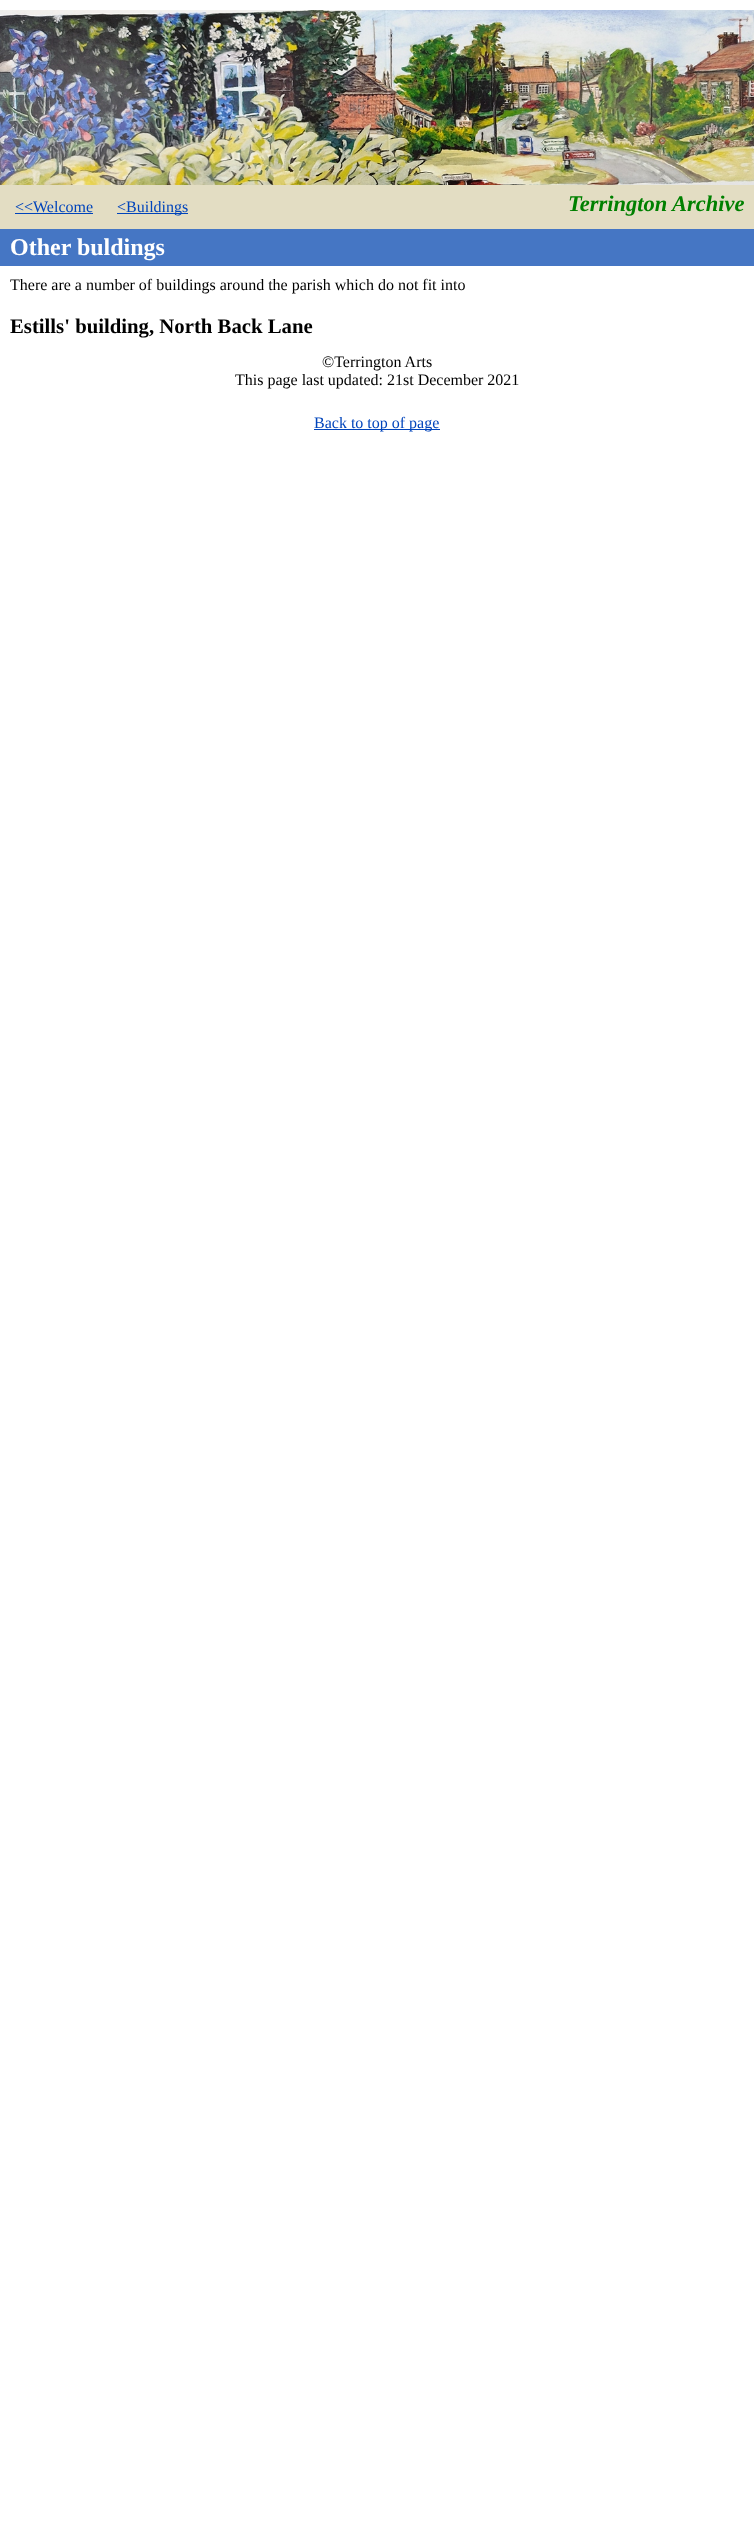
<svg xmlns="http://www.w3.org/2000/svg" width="754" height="2523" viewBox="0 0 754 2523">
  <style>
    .t1 { font: 16px Liberation Serif; fill: #04b; }
    .t2 { font: italic bold 22.5px Liberation Serif; fill: #008000; }
    .t3 { font: bold 24px Liberation Serif; fill: #fff; }
    .t4 { font: 16px Liberation Serif; fill: #000; }
    .t5 { font: bold 20.75px Liberation Serif; fill: #000; }
  </style>
  <rect width="100%" height="100%" fill="#fff"/>
  <image x="0" y="10" width="754" height="175" href="images/1.png"/>
  <rect x="0" y="185" width="754" height="44" fill="#e3ddc3"/>
  <text x="15" y="212" class="t1">&lt;&lt;Welcome</text>
  <rect x="15" y="213" width="78" height="1" fill="#04b"/>
  <rect x="117" y="213" width="71" height="1" fill="#04b"/>
  <text x="117" y="212" class="t1">&lt;Buildings</text>
  <text x="568" y="211" class="t2">Terrington Archive</text>
  <rect x="0" y="229" width="754" height="37" fill="#4576c4"/>
  <text x="10" y="255" class="t3">Other buldings</text>
  <text x="10" y="290" class="t4">There are a number of buildings around the parish which do not fit into</text>
  <text x="10" y="333" class="t5">Estills' building, North Back Lane</text>
  <text x="322" y="367" class="t4">©Terrington Arts</text>
  <text x="235" y="385" class="t4">This page last updated: 21st December 2021</text>
  <rect x="314" y="429" width="126" height="1" fill="#04b"/>
  <text x="314" y="428" class="t1">Back to top of page</text>
</svg>
